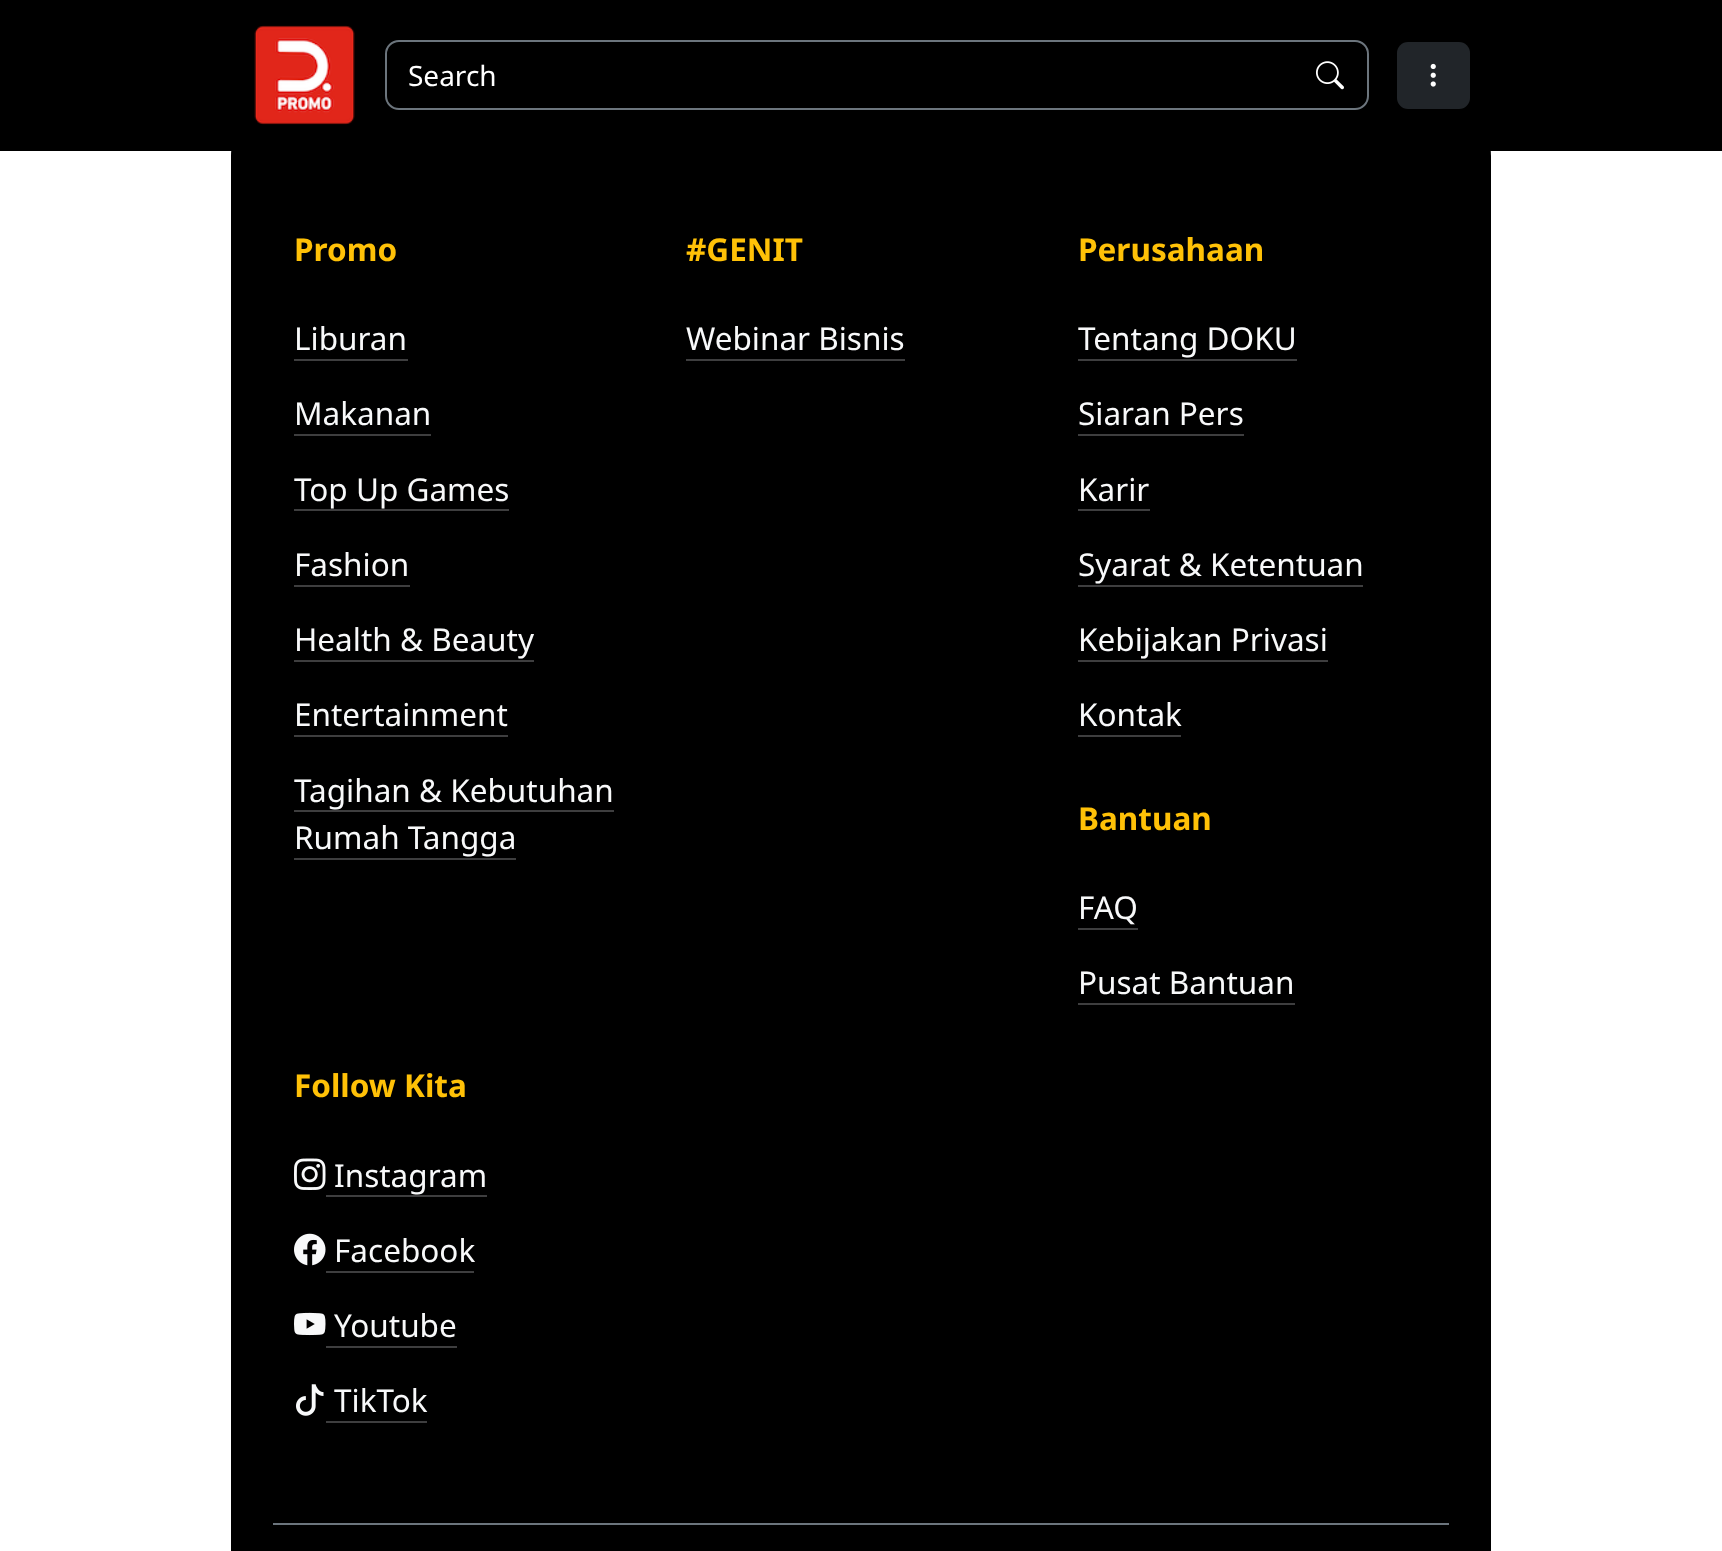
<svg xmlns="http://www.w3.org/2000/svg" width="1722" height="1551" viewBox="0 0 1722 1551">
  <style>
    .t1 { font: 28px Noto Sans; fill: #fff; }
    .t2 { font: bold 31.5px Noto Sans; fill: #ffc107; }
    .t3 { font: 31.5px Noto Sans; fill: #f8f9fa; }
  </style>
  <rect width="100%" height="100%" fill="#fff"/>
  <path d="M287 100H1435C1466 100 1491 125 1491 156V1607H231V156C231 125 256 100 287 100Z" fill="#000"/>
  <rect x="0" y="0" width="1722" height="151" fill="#000"/>
  <image x="254" y="25" width="101" height="100" href="images/1.png"/>
  <rect x="386" y="41" width="982" height="68" rx="13" fill="none" stroke="#6c757d" stroke-width="2"/>
  <text x="408" y="86" class="t1">Search</text>
  <image x="1316" y="61" width="28" height="29" href="images/2.png"/>
  <rect x="1397" y="42" width="73" height="67" rx="11" fill="#212529"/>
  <image x="1430" y="63" width="6" height="24" href="images/3.png"/>
  <text x="294" y="261" class="t2">Promo</text>
  <text x="294" y="350" class="t3">Liburan</text>
  <rect x="294" y="359" width="114" height="2" fill="#3e3e3f"/>
  <text x="294" y="425" class="t3">Makanan</text>
  <rect x="294" y="434" width="137" height="2" fill="#3e3e3f"/>
  <text x="294" y="501" class="t3">Top Up Games</text>
  <rect x="294" y="509" width="215" height="2" fill="#3e3e3f"/>
  <text x="294" y="576" class="t3">Fashion</text>
  <rect x="294" y="585" width="116" height="2" fill="#3e3e3f"/>
  <text x="294" y="651" class="t3">Health &amp; Beauty</text>
  <rect x="294" y="660" width="240" height="2" fill="#3e3e3f"/>
  <text x="294" y="726" class="t3">Entertainment</text>
  <rect x="294" y="735" width="214" height="2" fill="#3e3e3f"/>
  <text x="294" y="802" class="t3">Tagihan &amp; Kebutuhan</text>
  <rect x="294" y="810" width="320" height="2" fill="#3e3e3f"/>
  <text x="294" y="849" class="t3">Rumah Tangga</text>
  <rect x="294" y="858" width="222" height="2" fill="#3e3e3f"/>
  <text x="686" y="261" class="t2">#GENIT</text>
  <text x="686" y="350" class="t3">Webinar Bisnis</text>
  <rect x="686" y="359" width="219" height="2" fill="#3e3e3f"/>
  <text x="1078" y="261" class="t2">Perusahaan</text>
  <text x="1078" y="350" class="t3">Tentang DOKU</text>
  <rect x="1078" y="359" width="219" height="2" fill="#3e3e3f"/>
  <text x="1078" y="425" class="t3">Siaran Pers</text>
  <rect x="1078" y="434" width="166" height="2" fill="#3e3e3f"/>
  <text x="1078" y="501" class="t3">Karir</text>
  <rect x="1078" y="509" width="72" height="2" fill="#3e3e3f"/>
  <text x="1078" y="576" class="t3">Syarat &amp; Ketentuan</text>
  <rect x="1078" y="585" width="285" height="2" fill="#3e3e3f"/>
  <text x="1078" y="651" class="t3">Kebijakan Privasi</text>
  <rect x="1078" y="660" width="250" height="2" fill="#3e3e3f"/>
  <text x="1078" y="726" class="t3">Kontak</text>
  <rect x="1078" y="735" width="103" height="2" fill="#3e3e3f"/>
  <text x="1078" y="830" class="t2">Bantuan</text>
  <text x="1078" y="919" class="t3">FAQ</text>
  <rect x="1078" y="928" width="60" height="2" fill="#3e3e3f"/>
  <text x="1078" y="994" class="t3">Pusat Bantuan</text>
  <rect x="1078" y="1003" width="217" height="2" fill="#3e3e3f"/>
  <text x="294" y="1097" class="t2">Follow Kita</text>
  <image x="294" y="1158" width="32" height="32" href="images/4.png"/>
  <text x="334" y="1187" class="t3">Instagram</text>
  <rect x="326" y="1195" width="161" height="2" fill="#3e3e3f"/>
  <image x="294" y="1233" width="32" height="33" href="images/5.png"/>
  <text x="334" y="1262" class="t3">Facebook</text>
  <rect x="326" y="1271" width="148" height="2" fill="#3e3e3f"/>
  <image x="294" y="1312" width="32" height="24" href="images/6.png"/>
  <text x="334" y="1337" class="t3">Youtube</text>
  <rect x="326" y="1346" width="131" height="2" fill="#3e3e3f"/>
  <image x="296" y="1384" width="28" height="32" href="images/7.png"/>
  <text x="334" y="1412" class="t3">TikTok</text>
  <rect x="326" y="1421" width="101" height="2" fill="#3e3e3f"/>
  <rect x="273" y="1523" width="1176" height="2" fill="#6c757d"/>
</svg>
